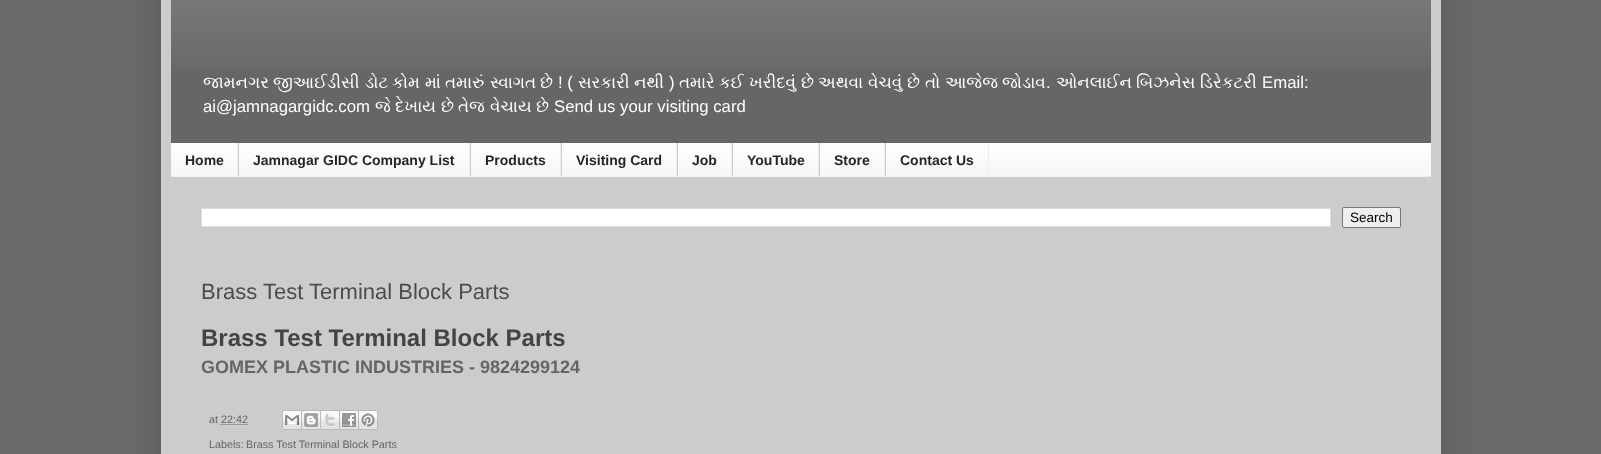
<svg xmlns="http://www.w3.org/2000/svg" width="1601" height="454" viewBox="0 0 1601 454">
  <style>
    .t1 { font: 16.75px FreeSerif; fill: #fff; }
    .t2 { font: 16.75px Liberation Sans; fill: #fff; }
    .t3 { font: bold 14px Liberation Sans; fill: #262626; }
    .t4 { font: 13.5px Liberation Sans; fill: #000; }
    .t5 { font: 22px Liberation Sans; fill: #4c4c4c; }
    .t6 { font: bold 24px Liberation Sans; fill: #444; }
    .t7 { font: bold 18px Liberation Sans; fill: #656565; }
    .t8 { font: 10.75px Liberation Sans; fill: #656565; }
  </style>
  <rect width="100%" height="100%" fill="#6a6a6c"/>
  <rect x="161" y="-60" width="1280" height="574" fill="#00000026" filter="blur(20px)"/>
  <rect x="161" y="0" width="1280" height="454" fill="#ccc"/>
  <rect x="171" y="0" width="1260" height="143" fill="#666"/>
  <image x="171" y="0" width="1260" height="70" href="images/1.png"/>
  <text x="203" y="88" class="t1">જામનગર</text>
  <text x="273" y="88" class="t1">જીઆઈડીસી</text>
  <text x="365" y="88" class="t1">ડોટ</text>
  <text x="392" y="88" class="t1">કોમ</text>
  <text x="425" y="88" class="t1">માં</text>
  <text x="445" y="88" class="t1">તમારું</text>
  <text x="490" y="88" class="t1">સ્વાગત</text>
  <text x="540" y="88" class="t1">છે</text>
  <text x="558" y="88" class="t2">! (</text>
  <text x="578" y="88" class="t1">સરકારી</text>
  <text x="634" y="88" class="t1">નથી</text>
  <text x="669" y="88" class="t2">)</text>
  <text x="679" y="88" class="t1">તમારે</text>
  <text x="719" y="88" class="t1">કઈ</text>
  <text x="749" y="88" class="t1">ખરીદવું</text>
  <text x="801" y="88" class="t1">છે</text>
  <text x="818" y="88" class="t1">અથવા</text>
  <text x="868" y="88" class="t1">વેચવું</text>
  <text x="907" y="88" class="t1">છે</text>
  <text x="925" y="88" class="t1">તો</text>
  <text x="945" y="88" class="t1">આજેજ</text>
  <text x="1002" y="88" class="t1">જોડાવ</text>
  <text x="1046" y="88" class="t2">.</text>
  <text x="1056" y="88" class="t1">ઓનલાઈન</text>
  <text x="1136" y="88" class="t1">બિઝનેસ</text>
  <text x="1200" y="88" class="t1">ડિરેકટરી</text>
  <text x="1262" y="88" class="t2">Email:</text>
  <text x="203" y="112" class="t2">ai@jamnagargidc.com</text>
  <text x="375" y="112" class="t1">જે</text>
  <text x="395" y="112" class="t1">દેખાય</text>
  <text x="441" y="112" class="t1">છે</text>
  <text x="458" y="112" class="t1">તેજ</text>
  <text x="490" y="112" class="t1">વેચાય</text>
  <text x="536" y="112" class="t1">છે</text>
  <text x="554" y="112" class="t2">Send us your visiting card</text>
  <rect x="171" y="144" width="1260" height="32" fill="#f4f4f4"/>
  <image x="171" y="143" width="1260" height="33" href="images/2.png"/>
  <rect x="171" y="176" width="1260" height="1" fill="#eee"/>
  <rect x="237" y="143" width="1" height="33" fill="#eee"/>
  <text x="185" y="165" class="t3">Home</text>
  <rect x="469" y="143" width="1" height="33" fill="#eee"/>
  <rect x="238" y="143" width="1" height="33" fill="#ccc"/>
  <text x="253" y="165" class="t3">Jamnagar GIDC Company List</text>
  <rect x="560" y="143" width="1" height="33" fill="#eee"/>
  <rect x="470" y="143" width="1" height="33" fill="#ccc"/>
  <text x="485" y="165" class="t3">Products</text>
  <rect x="676" y="143" width="1" height="33" fill="#eee"/>
  <rect x="561" y="143" width="1" height="33" fill="#ccc"/>
  <text x="576" y="165" class="t3">Visiting Card</text>
  <rect x="731" y="143" width="1" height="33" fill="#eee"/>
  <rect x="677" y="143" width="1" height="33" fill="#ccc"/>
  <text x="692" y="165" class="t3">Job</text>
  <rect x="818" y="143" width="1" height="33" fill="#eee"/>
  <rect x="732" y="143" width="1" height="33" fill="#ccc"/>
  <text x="747" y="165" class="t3">YouTube</text>
  <rect x="884" y="143" width="1" height="33" fill="#eee"/>
  <rect x="819" y="143" width="1" height="33" fill="#ccc"/>
  <text x="834" y="165" class="t3">Store</text>
  <rect x="988" y="143" width="1" height="33" fill="#eee"/>
  <rect x="885" y="143" width="1" height="33" fill="#ccc"/>
  <text x="900" y="165" class="t3">Contact Us</text>
  <rect x="201.5" y="208.5" width="1129" height="18" fill="#fff" stroke="#ddd"/>
  <rect x="1342.5" y="207.5" width="58" height="20" rx="1.5" fill="#efefef" stroke="#767676"/>
  <text x="1350" y="222" class="t4">Search</text>
  <text x="201" y="299" class="t5">Brass Test Terminal Block Parts</text>
  <text x="201" y="346" class="t6">Brass Test Terminal Block Parts</text>
  <text x="201" y="373" class="t7">GOMEX PLASTIC INDUSTRIES - 9824299124</text>
  <text x="209" y="423" class="t8">at</text>
  <path d="M220.5 424.5H247.5" fill="none" stroke="#666" stroke-dasharray="1 1"/>
  <text x="221" y="423" class="t8">22:42</text>
  <image x="282" y="410" width="20" height="20" href="images/3.png"/>
  <image x="302" y="410" width="19" height="20" href="images/4.png"/>
  <image x="321" y="410" width="19" height="20" href="images/5.png"/>
  <image x="340" y="410" width="19" height="20" href="images/6.png"/>
  <image x="359" y="410" width="19" height="20" href="images/7.png"/>
  <text x="209" y="448" class="t8">Labels:</text>
  <text x="246" y="448" class="t8">Brass Test Terminal Block Parts</text>
</svg>
